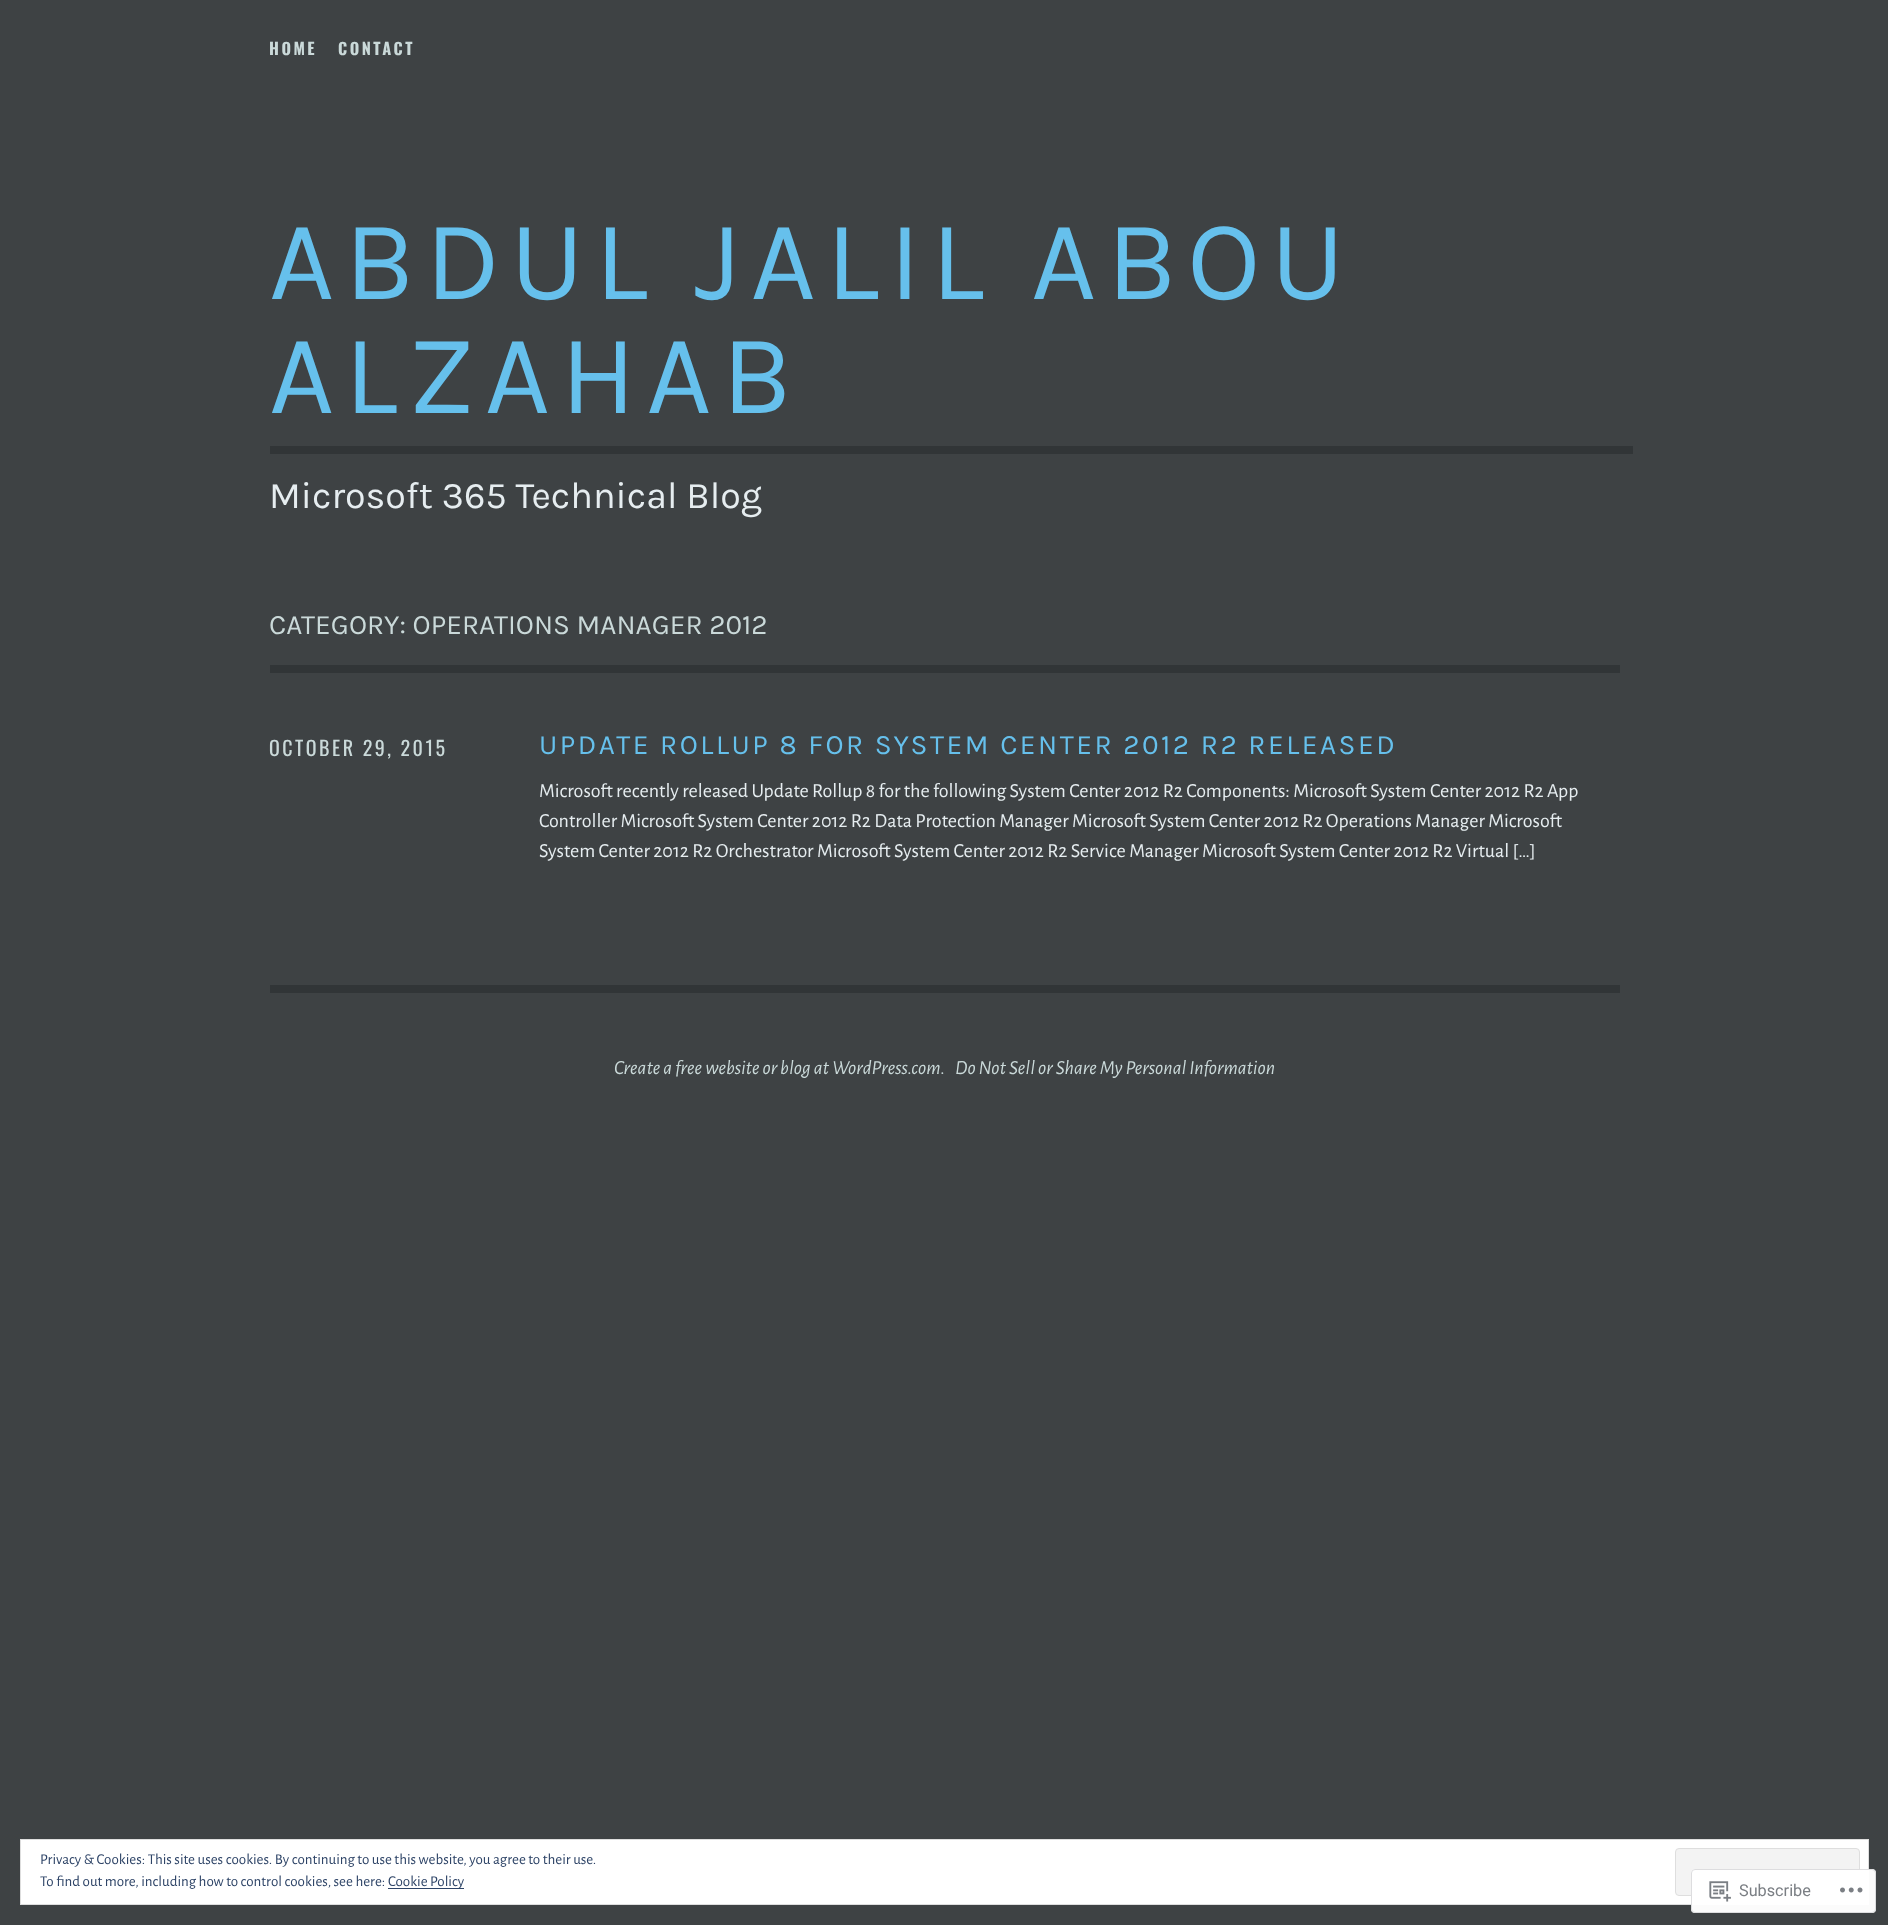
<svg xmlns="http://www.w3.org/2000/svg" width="1888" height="1925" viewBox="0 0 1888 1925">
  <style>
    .t1 { font: bold 16.25px Oswald; letter-spacing: 2.5px; fill: #cad9d9; }
    .t2 { font: 113.75px Karla; letter-spacing: 10px; fill: #66c0ec; }
    .t3 { font: 37.6px Karla; fill: #e6edf0; }
    .t4 { font: 28px Karla; fill: #cad9d9; }
    .t5 { font: 20px Oswald; letter-spacing: 2.5px; fill: #cad9d9; }
    .t6 { font: 28px Karla; letter-spacing: 2.5px; fill: #66c0ec; }
    .t7 { font: 20px Alegreya Sans; fill: #e6edf0; }
    .t8 { font: italic 20px Alegreya Sans; fill: #cad9d9; }
    .t9 { font: 15px Alegreya Sans; fill: #2e4467; }
    .t10 { font: 16.25px Roboto; fill: #7b7f84; }
  </style>
  <rect width="100%" height="100%" fill="#3e4244"/>
  <text x="269" y="55" class="t1">HOME</text>
  <text x="338" y="55" class="t1">CONTACT</text>
  <text x="269" y="299" class="t2">ABDUL JALIL ABOU</text>
  <text x="269" y="413" class="t2">ALZAHAB</text>
  <rect x="270" y="446" width="1363" height="8" fill="#313537"/>
  <text x="269" y="508" class="t3">Microsoft 365 Technical Blog</text>
  <text x="269" y="634" class="t4">CATEGORY: OPERATIONS MANAGER 2012</text>
  <rect x="270" y="665" width="1350" height="8" fill="#313537"/>
  <text x="269" y="756" class="t5">OCTOBER 29, 2015</text>
  <text x="539" y="754" class="t6">UPDATE ROLLUP 8 FOR SYSTEM CENTER 2012 R2 RELEASED</text>
  <text x="539" y="797" class="t7">Microsoft recently released Update Rollup 8 for the following System Center 2012 R2 Components: Microsoft System Center 2012 R2 App</text>
  <text x="539" y="827" class="t7">Controller Microsoft System Center 2012 R2 Data Protection Manager Microsoft System Center 2012 R2 Operations Manager Microsoft</text>
  <text x="539" y="857" class="t7">System Center 2012 R2 Orchestrator Microsoft System Center 2012 R2 Service Manager Microsoft System Center 2012 R2 Virtual […]</text>
  <rect x="270" y="985" width="1350" height="8" fill="#313537"/>
  <text x="614" y="1074" class="t8">Create a free website or blog at WordPress.com.</text>
  <text x="955" y="1074" class="t8">Do Not Sell or Share My Personal Information</text>
  <rect x="20.5" y="1839.5" width="1848" height="65" fill="#fff" stroke="#dedede"/>
  <text x="40" y="1864" class="t9">Privacy &amp; Cookies: This site uses cookies. By continuing to use this website, you agree to their use.</text>
  <rect x="1675.5" y="1848.5" width="184" height="47" rx="3.5" fill="#f3f3f3" stroke="#dedede"/>
  <text x="40" y="1886" class="t9">To find out more, including how to control cookies, see here:</text>
  <rect x="388" y="1888" width="76" height="1" fill="#2e4467"/>
  <text x="388" y="1886" class="t9">Cookie Policy</text>
  <rect x="1691" y="1869" width="185" height="44" rx="4" fill="#fffffffa"/>
  <rect x="1691.5" y="1869.5" width="184" height="43" rx="3.5" fill="none" stroke="#dcdcdefa"/>
  <image x="1709" y="1881" width="22" height="21" href="images/1.png"/>
  <text x="1739" y="1896" class="t10">Subscribe</text>
  <image x="1840" y="1887" width="23" height="6" href="images/2.png"/>
</svg>
